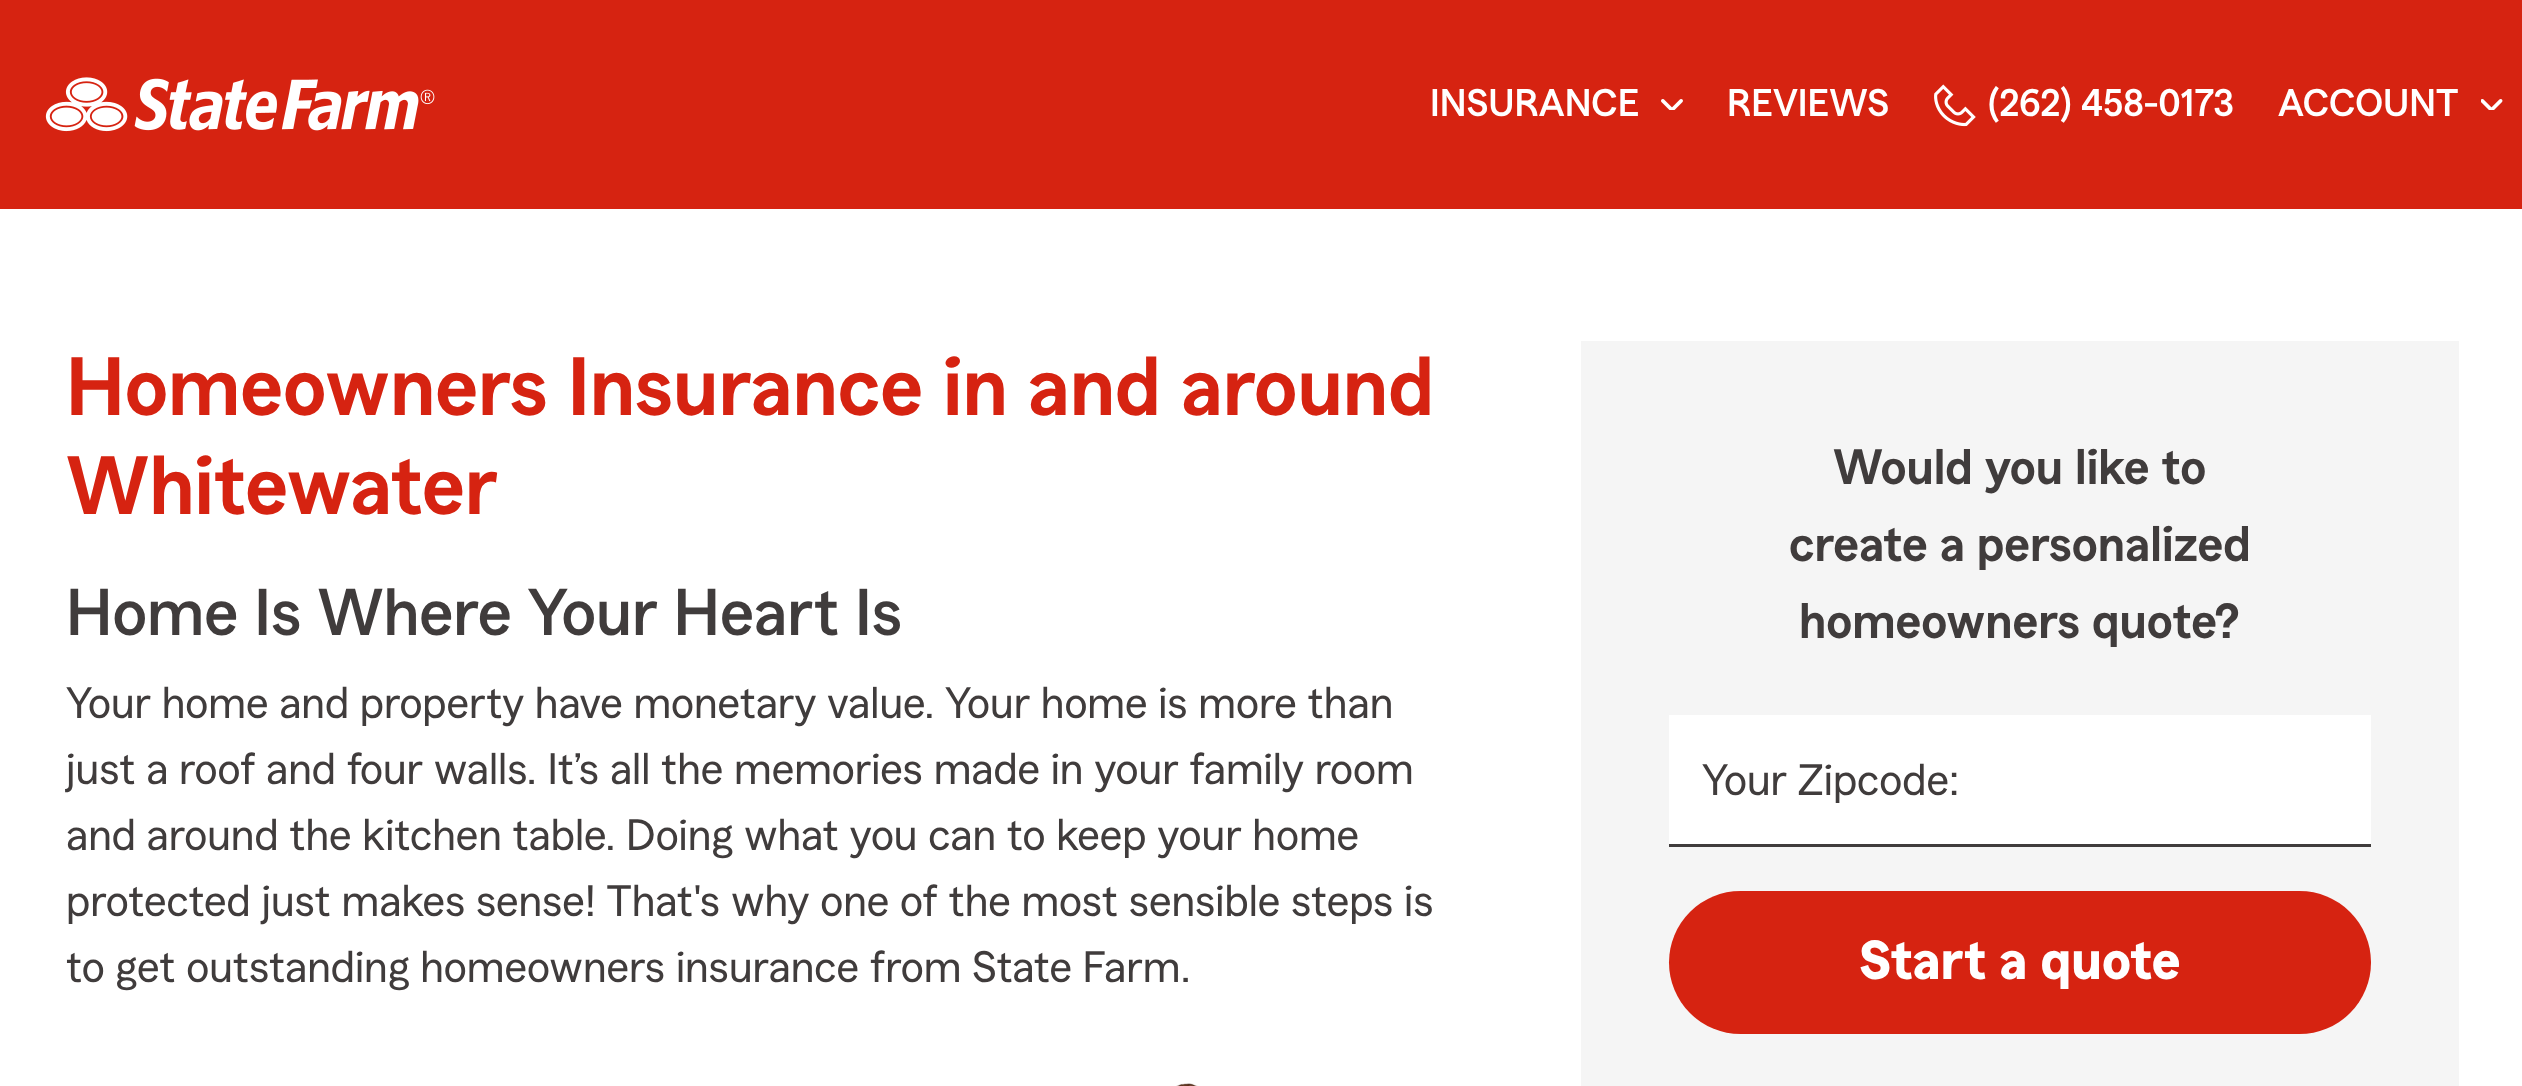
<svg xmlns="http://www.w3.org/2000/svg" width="2522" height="1086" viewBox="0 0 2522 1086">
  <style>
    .t1 { font: 500 38.5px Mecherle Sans; fill: #fff; }
    .t2 { font: 600 82.5px Mecherle Sans; fill: #d62311; }
    .t3 { font: 500 66px Mecherle Sans; fill: #403c3c; }
    .t4 { font: 44px Mecherle Sans; fill: #403c3c; }
    .t5 { font: 600 49.5px Mecherle Sans; fill: #403c3c; }
    .t6 { font: bold 55px Mecherle Sans; fill: #fff; }
  </style>
  <rect width="100%" height="100%" fill="#fff"/>
  <rect x="0" y="0" width="2522" height="209" fill="#d62311"/>
  <image x="45" y="77" width="390" height="55" href="images/1.png"/>
  <text x="1430" y="116" class="t1">INSURANCE</text>
  <image x="1661" y="99" width="22" height="11" href="images/2.png"/>
  <text x="1727" y="116" class="t1">REVIEWS</text>
  <image x="1934" y="84" width="42" height="43" href="images/3.png"/>
  <text x="1988" y="116" class="t1">(262) 458-0173</text>
  <text x="2278" y="116" class="t1">ACCOUNT</text>
  <image x="2481" y="99" width="22" height="11" href="images/4.png"/>
  <text x="66" y="415" class="t2">Homeowners Insurance in and around</text>
  <text x="66" y="514" class="t2">Whitewater</text>
  <text x="66" y="635" class="t3">Home Is Where Your Heart Is</text>
  <text x="66" y="718" class="t4">Your home and property have monetary value. Your home is more than</text>
  <text x="66" y="784" class="t4">just a roof and four walls. It’s all the memories made in your family room</text>
  <text x="66" y="850" class="t4">and around the kitchen table. Doing what you can to keep your home</text>
  <text x="66" y="916" class="t4">protected just makes sense! That's why one of the most sensible steps is</text>
  <text x="66" y="982" class="t4">to get outstanding homeowners insurance from State Farm.</text>
  <image x="1176" y="1083" width="22" height="3" href="images/5.png"/>
  <rect x="1581" y="341" width="878" height="745" fill="#f5f5f5"/>
  <text x="1833" y="484" class="t5">Would you like to</text>
  <text x="1789" y="561" class="t5">create a personalized</text>
  <text x="1799" y="638" class="t5">homeowners quote?</text>
  <rect x="1669" y="715" width="702" height="129" fill="#fff"/>
  <rect x="1669" y="844" width="702" height="3" fill="#403c3c"/>
  <text x="1702" y="795" class="t4">Your Zipcode:</text>
  <rect x="1669" y="891" width="702" height="143" rx="71.5" fill="#d62311"/>
  <text x="1859" y="979" class="t6">Start a quote</text>
</svg>
